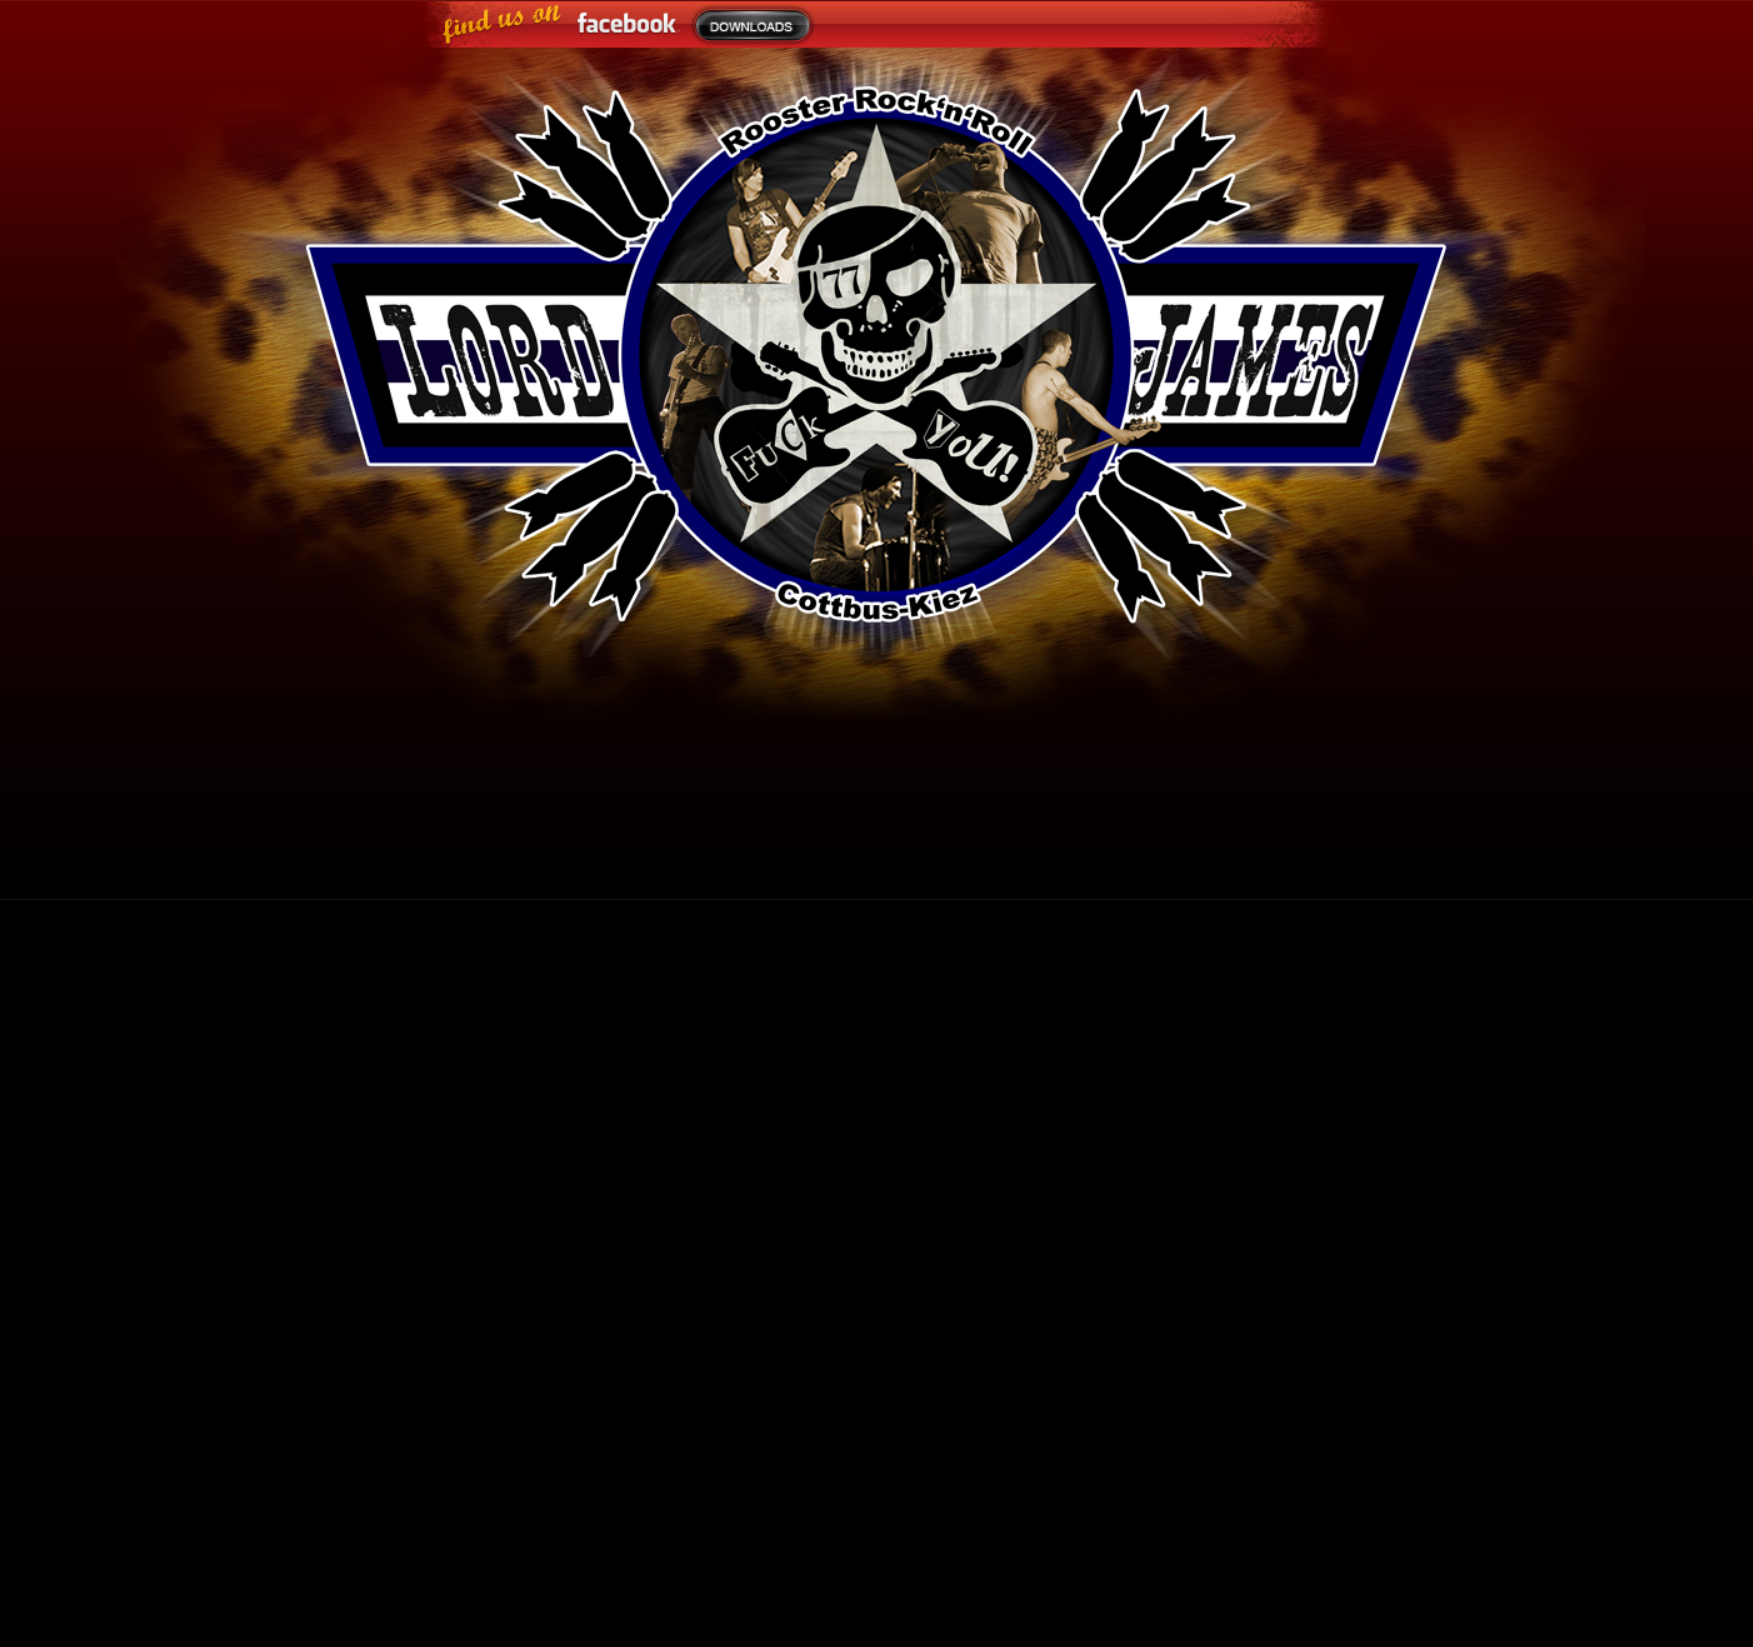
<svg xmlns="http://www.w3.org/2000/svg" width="1753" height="1647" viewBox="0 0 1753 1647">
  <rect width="100%" height="100%" fill="#000"/>
  <image x="0" y="0" width="1753" height="900" href="images/1.png"/>
  <image x="117" y="0" width="1529" height="718" href="images/2.png"/>
  <image x="417" y="0" width="923" height="48" href="images/3.png"/>
  <image x="565" y="12" width="125" height="36" href="images/4.png"/>
  <image x="690" y="4" width="125" height="44" href="images/5.png"/>
  <image x="230" y="51" width="1294" height="609" href="images/6.png"/>
</svg>
